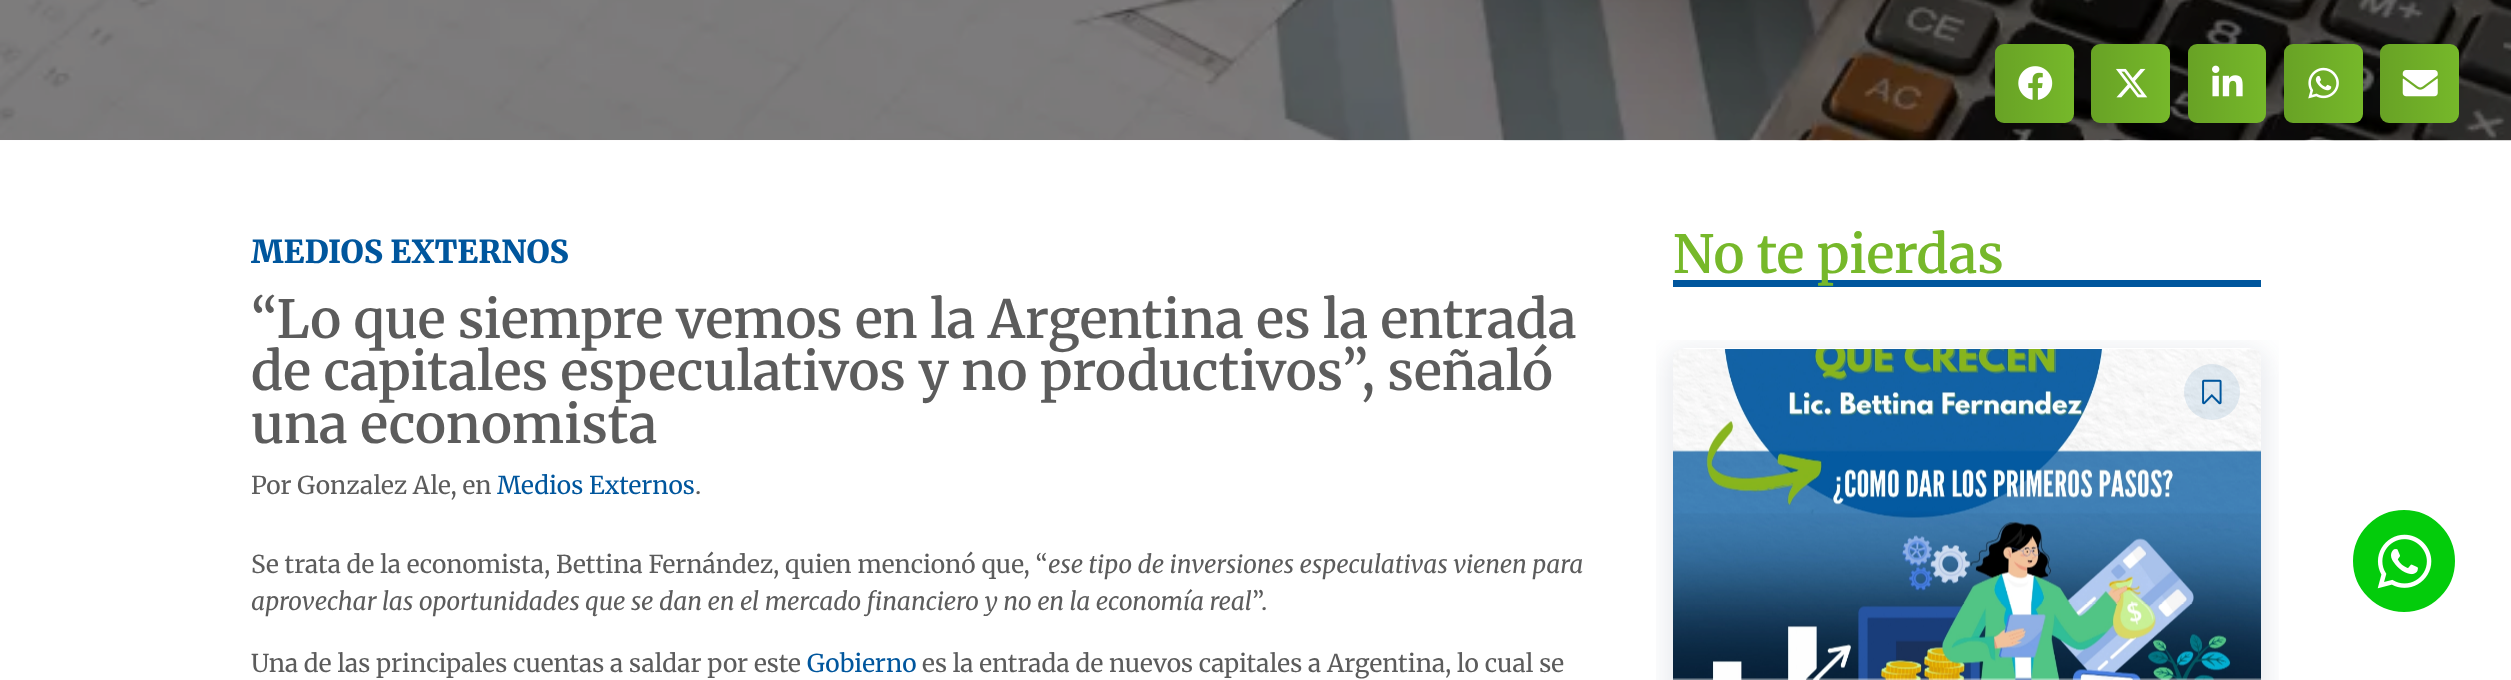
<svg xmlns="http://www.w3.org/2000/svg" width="2511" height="680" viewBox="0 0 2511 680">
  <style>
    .t1 { font: 900 31.5px Merriweather; fill: #00569d; }
    .t2 { font: 600 52.5px Merriweather; fill: #5c5c5c; }
    .t3 { font: 24.5px Merriweather; fill: #5c5c5c; }
    .t4 { font: 24.5px Merriweather; fill: #00569d; }
    .t5 { font: italic 24.5px Merriweather; fill: #5c5c5c; }
    .t6 { font: 600 52.5px Merriweather; fill: #76b82a; }
  </style>
  <defs>
    <linearGradient id="g1" gradientUnits="userSpaceOnUse" x1="1995" y1="83" x2="2074" y2="83"><stop offset="0" stop-color="#000" stop-opacity="0.12"/><stop offset="1" stop-color="#000" stop-opacity="0"/></linearGradient>
    <linearGradient id="g2" gradientUnits="userSpaceOnUse" x1="2091" y1="83" x2="2170" y2="83"><stop offset="0" stop-color="#000" stop-opacity="0.12"/><stop offset="1" stop-color="#000" stop-opacity="0"/></linearGradient>
    <linearGradient id="g3" gradientUnits="userSpaceOnUse" x1="2188" y1="83" x2="2266" y2="83"><stop offset="0" stop-color="#000" stop-opacity="0.12"/><stop offset="1" stop-color="#000" stop-opacity="0"/></linearGradient>
    <linearGradient id="g4" gradientUnits="userSpaceOnUse" x1="2284" y1="83" x2="2363" y2="83"><stop offset="0" stop-color="#000" stop-opacity="0.12"/><stop offset="1" stop-color="#000" stop-opacity="0"/></linearGradient>
    <linearGradient id="g5" gradientUnits="userSpaceOnUse" x1="2380" y1="83" x2="2459" y2="83"><stop offset="0" stop-color="#000" stop-opacity="0.12"/><stop offset="1" stop-color="#000" stop-opacity="0"/></linearGradient>
    <clipPath id="clip1"><rect x="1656" y="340" width="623" height="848"/></clipPath>
  </defs>
  <rect width="100%" height="100%" fill="#fff"/>
  <image x="0" y="0" width="2511" height="141" href="images/1.png"/>
  <rect x="1995" y="44" width="79" height="79" rx="9" fill="#76b82a"/>
  <rect x="1995" y="44" width="79" height="79" rx="9" fill="url(#g1)"/>
  <image x="2018" y="66" width="35" height="34" href="images/2.png"/>
  <rect x="2091" y="44" width="79" height="79" rx="9" fill="#76b82a"/>
  <rect x="2091" y="44" width="79" height="79" rx="9" fill="url(#g2)"/>
  <image x="2116" y="68" width="32" height="30" href="images/3.png"/>
  <rect x="2188" y="44" width="78" height="79" rx="9" fill="#76b82a"/>
  <rect x="2188" y="44" width="78" height="79" rx="9" fill="url(#g3)"/>
  <image x="2212" y="65" width="31" height="32" href="images/4.png"/>
  <rect x="2284" y="44" width="79" height="79" rx="9" fill="#76b82a"/>
  <rect x="2284" y="44" width="79" height="79" rx="9" fill="url(#g4)"/>
  <image x="2308" y="67" width="31" height="32" href="images/5.png"/>
  <rect x="2380" y="44" width="79" height="79" rx="9" fill="#76b82a"/>
  <rect x="2380" y="44" width="79" height="79" rx="9" fill="url(#g5)"/>
  <image x="2402" y="70" width="36" height="27" href="images/6.png"/>
  <text x="251" y="263" class="t1">MEDIOS EXTERNOS</text>
  <text x="251" y="338" class="t2">“Lo que siempre vemos en la Argentina es la entrada</text>
  <text x="251" y="390" class="t2">de capitales especulativos y no productivos”, señaló</text>
  <text x="251" y="443" class="t2">una economista</text>
  <text x="251" y="494" class="t3">Por Gonzalez Ale, en</text>
  <text x="497" y="494" class="t4">Medios Externos</text>
  <text x="695" y="494" class="t3">.</text>
  <text x="251" y="573" class="t3">Se trata de la economista, Bettina Fernández, quien mencionó que, “</text>
  <text x="1048" y="573" class="t5">ese tipo de inversiones especulativas vienen para</text>
  <text x="251" y="610" class="t5">aprovechar las oportunidades que se dan en el mercado financiero y no en la economía real</text>
  <text x="1252" y="610" class="t3">”.</text>
  <text x="251" y="672" class="t3">Una de las principales cuentas a saldar por este</text>
  <text x="807" y="672" class="t4">Gobierno</text>
  <text x="922" y="672" class="t3">es la entrada de nuevos capitales a Argentina, lo cual se</text>
  <rect x="1673" y="280" width="588" height="7" fill="#00569d"/>
  <text x="1673" y="273" class="t6">No te pierdas</text>
  <g clip-path="url(#clip1)">
    <rect x="1666" y="348" width="602" height="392" rx="21" fill="#2739651a" filter="blur(13px)"/>
  </g>
  <rect x="1673" y="348" width="588" height="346" rx="14" fill="#fff"/>
  <image x="1673" y="349" width="588" height="331" href="images/7.png"/>
  <circle cx="2212" cy="392" r="28" fill="#00569d1a"/>
  <image x="2202" y="379" width="20" height="26" href="images/8.png"/>
  <circle cx="2404" cy="561" r="53" fill="#03cc0b" stroke="#fff" stroke-width="4"/>
  <image x="2377" y="534" width="55" height="55" href="images/9.png"/>
</svg>
